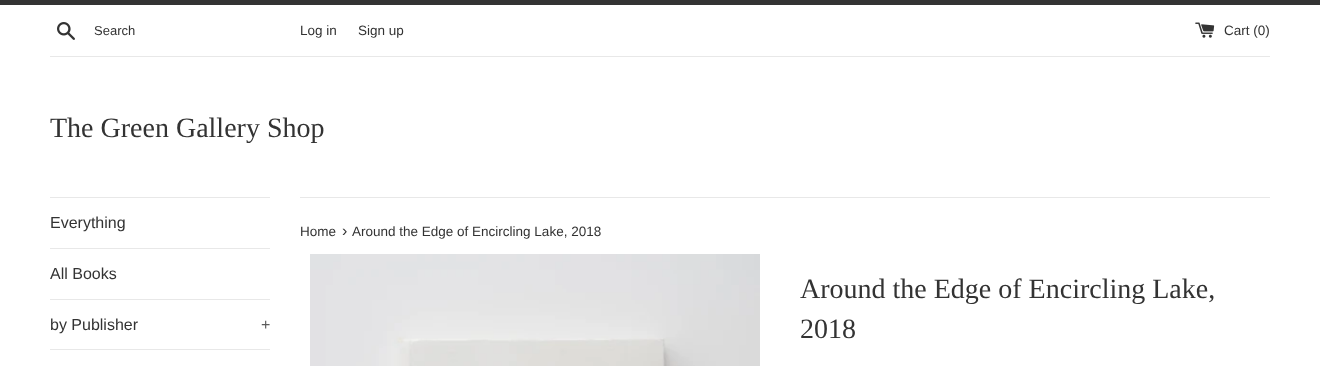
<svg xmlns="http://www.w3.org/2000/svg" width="1320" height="366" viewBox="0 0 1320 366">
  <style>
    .t1 { font: 13px Liberation Sans; fill: #333; }
    .t2 { font: 13.5px Liberation Sans; fill: #333; }
    .t3 { font: 28px Liberation Serif; fill: #333; }
    .t4 { font: 16px Liberation Sans; fill: #333; }
    .t5 { font: 16px Liberation Sans; fill: #5c5c5c; }
  </style>
  <rect width="100%" height="100%" fill="#fff"/>
  <rect x="0" y="0" width="1320" height="5" fill="#333"/>
  <image x="57" y="22" width="18" height="18" href="images/1.png"/>
  <text x="94" y="35" class="t1">Search</text>
  <text x="300" y="35" class="t2">Log in</text>
  <text x="358" y="35" class="t2">Sign up</text>
  <image x="1195" y="22" width="20" height="16" href="images/2.png"/>
  <text x="1224" y="35" class="t2">Cart (0)</text>
  <rect x="50" y="56" width="1220" height="1" fill="#e8e8e8"/>
  <text x="50" y="137" class="t3">The Green Gallery Shop</text>
  <rect x="50" y="197" width="220" height="1" fill="#e8e8e8"/>
  <rect x="50" y="248" width="220" height="1" fill="#e8e8e8"/>
  <text x="50" y="228" class="t4">Everything</text>
  <rect x="50" y="299" width="220" height="1" fill="#e8e8e8"/>
  <text x="50" y="279" class="t4">All Books</text>
  <rect x="50" y="349" width="220" height="1" fill="#e8e8e8"/>
  <text x="50" y="330" class="t4">by Publisher</text>
  <text x="261" y="330" class="t5">+</text>
  <rect x="300" y="197" width="970" height="1" fill="#e8e8e8"/>
  <text x="300" y="236" class="t2">Home</text>
  <text x="342" y="236" class="t4">›</text>
  <text x="352" y="236" class="t2">Around the Edge of Encircling Lake, 2018</text>
  <image x="310" y="254" width="450" height="112" href="images/3.png"/>
  <text x="800" y="298" class="t3">Around the Edge of Encircling Lake,</text>
  <text x="800" y="338" class="t3">2018</text>
</svg>
